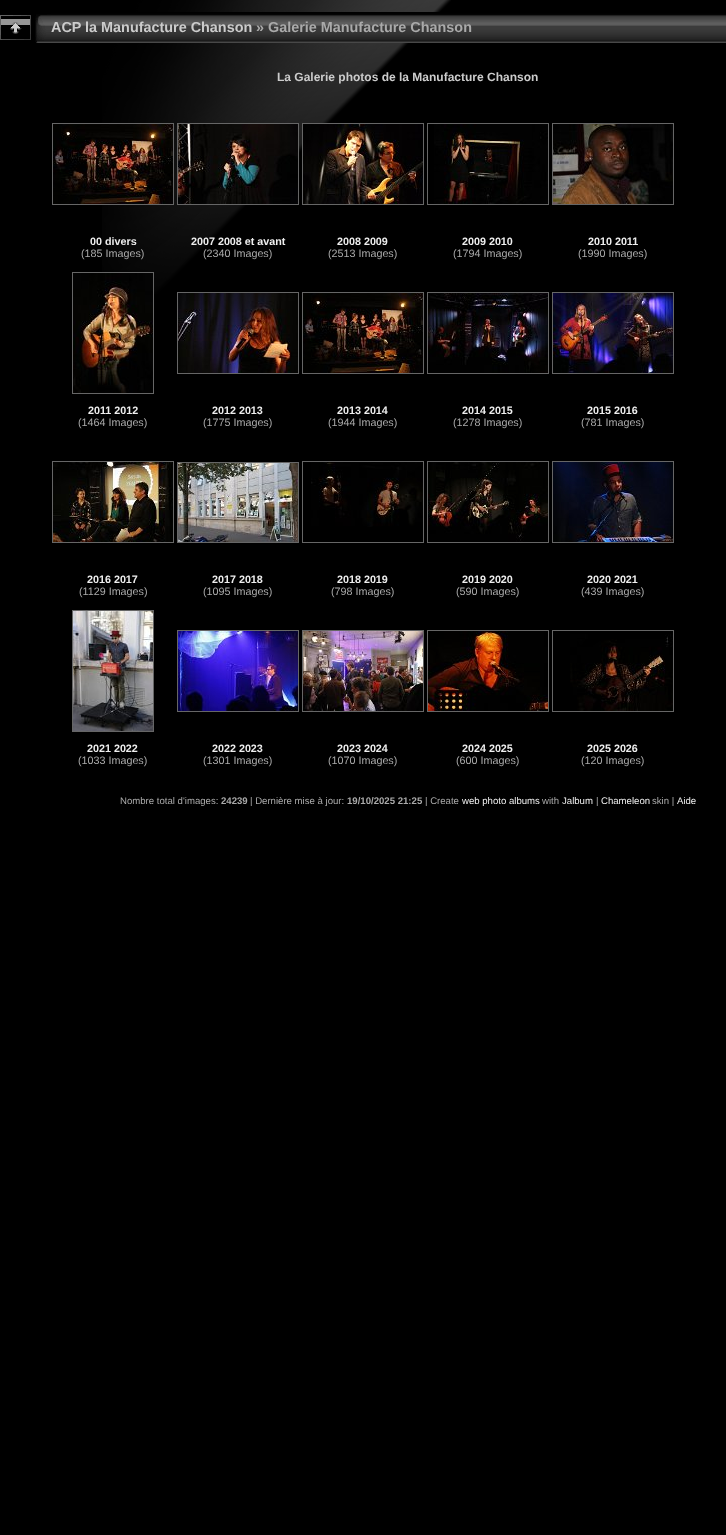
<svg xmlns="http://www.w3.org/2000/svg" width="726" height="1535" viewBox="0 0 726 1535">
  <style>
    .t1 { font: bold 14.4px Liberation Sans; fill: #ccc; }
    .t2 { font: bold 14.4px Liberation Sans; fill: #aaa; }
    .t3 { font: bold 12px Liberation Sans; fill: #ccc; }
    .t4 { font: bold 10.75px Liberation Sans; fill: #eee; }
    .t5 { font: 10.75px Liberation Sans; fill: #aaa; }
    .t6 { font: 9.6px Liberation Sans; fill: #aaa; }
    .t7 { font: bold 9.6px Liberation Sans; fill: #aaa; }
    .t8 { font: 9.6px Liberation Sans; fill: #eee; }
  </style>
  <rect width="100%" height="100%" fill="#000"/>
  <image x="102" y="0" width="349" height="294" href="images/1.png"/>
  <image x="0" y="15" width="31" height="25" href="images/2.png"/>
  <image x="35" y="14" width="16" height="29" href="images/3.png"/>
  <image x="51" y="12" width="675" height="31" href="images/4.png"/>
  <text x="51" y="32" class="t1">ACP la Manufacture Chanson</text>
  <text x="256" y="32" class="t2">» Galerie Manufacture Chanson</text>
  <text x="277" y="81" class="t3">La Galerie photos de la Manufacture Chanson</text>
  <rect x="52.5" y="123.5" width="121" height="81" fill="none" stroke="#666"/>
  <image x="53" y="124" width="120" height="80" href="images/5.png"/>
  <text x="90" y="245" class="t4">00 divers</text>
  <text x="81" y="257" class="t5">(185 Images)</text>
  <rect x="177.5" y="123.5" width="121" height="81" fill="none" stroke="#666"/>
  <image x="178" y="124" width="120" height="80" href="images/6.png"/>
  <text x="191" y="245" class="t4">2007 2008 et avant</text>
  <text x="203" y="257" class="t5">(2340 Images)</text>
  <rect x="302.5" y="123.5" width="121" height="81" fill="none" stroke="#666"/>
  <image x="303" y="124" width="120" height="80" href="images/7.png"/>
  <text x="337" y="245" class="t4">2008 2009</text>
  <text x="328" y="257" class="t5">(2513 Images)</text>
  <rect x="427.5" y="123.5" width="121" height="81" fill="none" stroke="#666"/>
  <image x="434" y="124" width="114" height="80" href="images/8.png"/>
  <text x="462" y="245" class="t4">2009 2010</text>
  <text x="453" y="257" class="t5">(1794 Images)</text>
  <rect x="552.5" y="123.5" width="121" height="81" fill="none" stroke="#666"/>
  <image x="553" y="124" width="120" height="80" href="images/9.png"/>
  <text x="588" y="245" class="t4">2010 2011</text>
  <text x="578" y="257" class="t5">(1990 Images)</text>
  <rect x="72.5" y="272.5" width="81" height="121" fill="none" stroke="#666"/>
  <image x="73" y="273" width="80" height="120" href="images/10.png"/>
  <text x="88" y="414" class="t4">2011 2012</text>
  <text x="78" y="426" class="t5">(1464 Images)</text>
  <rect x="177.5" y="292.5" width="121" height="81" fill="none" stroke="#666"/>
  <image x="178" y="293" width="120" height="80" href="images/11.png"/>
  <text x="212" y="414" class="t4">2012 2013</text>
  <text x="203" y="426" class="t5">(1775 Images)</text>
  <rect x="302.5" y="292.5" width="121" height="81" fill="none" stroke="#666"/>
  <image x="303" y="293" width="120" height="80" href="images/5.png"/>
  <text x="337" y="414" class="t4">2013 2014</text>
  <text x="328" y="426" class="t5">(1944 Images)</text>
  <rect x="427.5" y="292.5" width="121" height="81" fill="none" stroke="#666"/>
  <image x="428" y="293" width="120" height="80" href="images/12.png"/>
  <text x="462" y="414" class="t4">2014 2015</text>
  <text x="453" y="426" class="t5">(1278 Images)</text>
  <rect x="552.5" y="292.5" width="121" height="81" fill="none" stroke="#666"/>
  <image x="553" y="293" width="120" height="80" href="images/13.png"/>
  <text x="587" y="414" class="t4">2015 2016</text>
  <text x="581" y="426" class="t5">(781 Images)</text>
  <rect x="52.5" y="461.5" width="121" height="81" fill="none" stroke="#666"/>
  <image x="53" y="462" width="120" height="80" href="images/14.png"/>
  <text x="87" y="583" class="t4">2016 2017</text>
  <text x="79" y="595" class="t5">(1129 Images)</text>
  <rect x="177.5" y="462.5" width="121" height="80" fill="none" stroke="#666"/>
  <image x="178" y="463" width="120" height="79" href="images/15.png"/>
  <text x="212" y="583" class="t4">2017 2018</text>
  <text x="203" y="595" class="t5">(1095 Images)</text>
  <rect x="302.5" y="461.5" width="121" height="81" fill="none" stroke="#666"/>
  <image x="311" y="462" width="112" height="65" href="images/16.png"/>
  <text x="337" y="583" class="t4">2018 2019</text>
  <text x="331" y="595" class="t5">(798 Images)</text>
  <rect x="427.5" y="461.5" width="121" height="81" fill="none" stroke="#666"/>
  <image x="428" y="462" width="120" height="80" href="images/17.png"/>
  <text x="462" y="583" class="t4">2019 2020</text>
  <text x="456" y="595" class="t5">(590 Images)</text>
  <rect x="552.5" y="461.5" width="121" height="81" fill="none" stroke="#666"/>
  <image x="553" y="462" width="120" height="80" href="images/18.png"/>
  <text x="587" y="583" class="t4">2020 2021</text>
  <text x="581" y="595" class="t5">(439 Images)</text>
  <rect x="72.5" y="610.5" width="81" height="121" fill="none" stroke="#666"/>
  <image x="73" y="611" width="80" height="120" href="images/19.png"/>
  <text x="87" y="752" class="t4">2021 2022</text>
  <text x="78" y="764" class="t5">(1033 Images)</text>
  <rect x="177.5" y="630.5" width="121" height="81" fill="none" stroke="#666"/>
  <image x="178" y="631" width="120" height="80" href="images/20.png"/>
  <text x="212" y="752" class="t4">2022 2023</text>
  <text x="203" y="764" class="t5">(1301 Images)</text>
  <rect x="302.5" y="630.5" width="121" height="81" fill="none" stroke="#666"/>
  <image x="303" y="631" width="120" height="80" href="images/21.png"/>
  <text x="337" y="752" class="t4">2023 2024</text>
  <text x="328" y="764" class="t5">(1070 Images)</text>
  <rect x="427.5" y="630.5" width="121" height="81" fill="none" stroke="#666"/>
  <image x="428" y="631" width="120" height="80" href="images/22.png"/>
  <text x="462" y="752" class="t4">2024 2025</text>
  <text x="456" y="764" class="t5">(600 Images)</text>
  <rect x="552.5" y="630.5" width="121" height="81" fill="none" stroke="#666"/>
  <image x="570" y="634" width="103" height="77" href="images/23.png"/>
  <text x="587" y="752" class="t4">2025 2026</text>
  <text x="581" y="764" class="t5">(120 Images)</text>
  <text x="120" y="804" class="t6">Nombre total d'images:</text>
  <text x="221" y="804" class="t7">24239</text>
  <text x="250" y="804" class="t6">| Dernière mise à jour:</text>
  <text x="347" y="804" class="t7">19/10/2025 21:25</text>
  <text x="425" y="804" class="t6">| Create</text>
  <text x="462" y="804" class="t8">web photo albums</text>
  <text x="542" y="804" class="t6">with</text>
  <text x="562" y="804" class="t8">Jalbum</text>
  <text x="596" y="804" class="t6">|</text>
  <text x="601" y="804" class="t8">Chameleon</text>
  <text x="652" y="804" class="t6">skin |</text>
  <text x="677" y="804" class="t8">Aide</text>
</svg>
